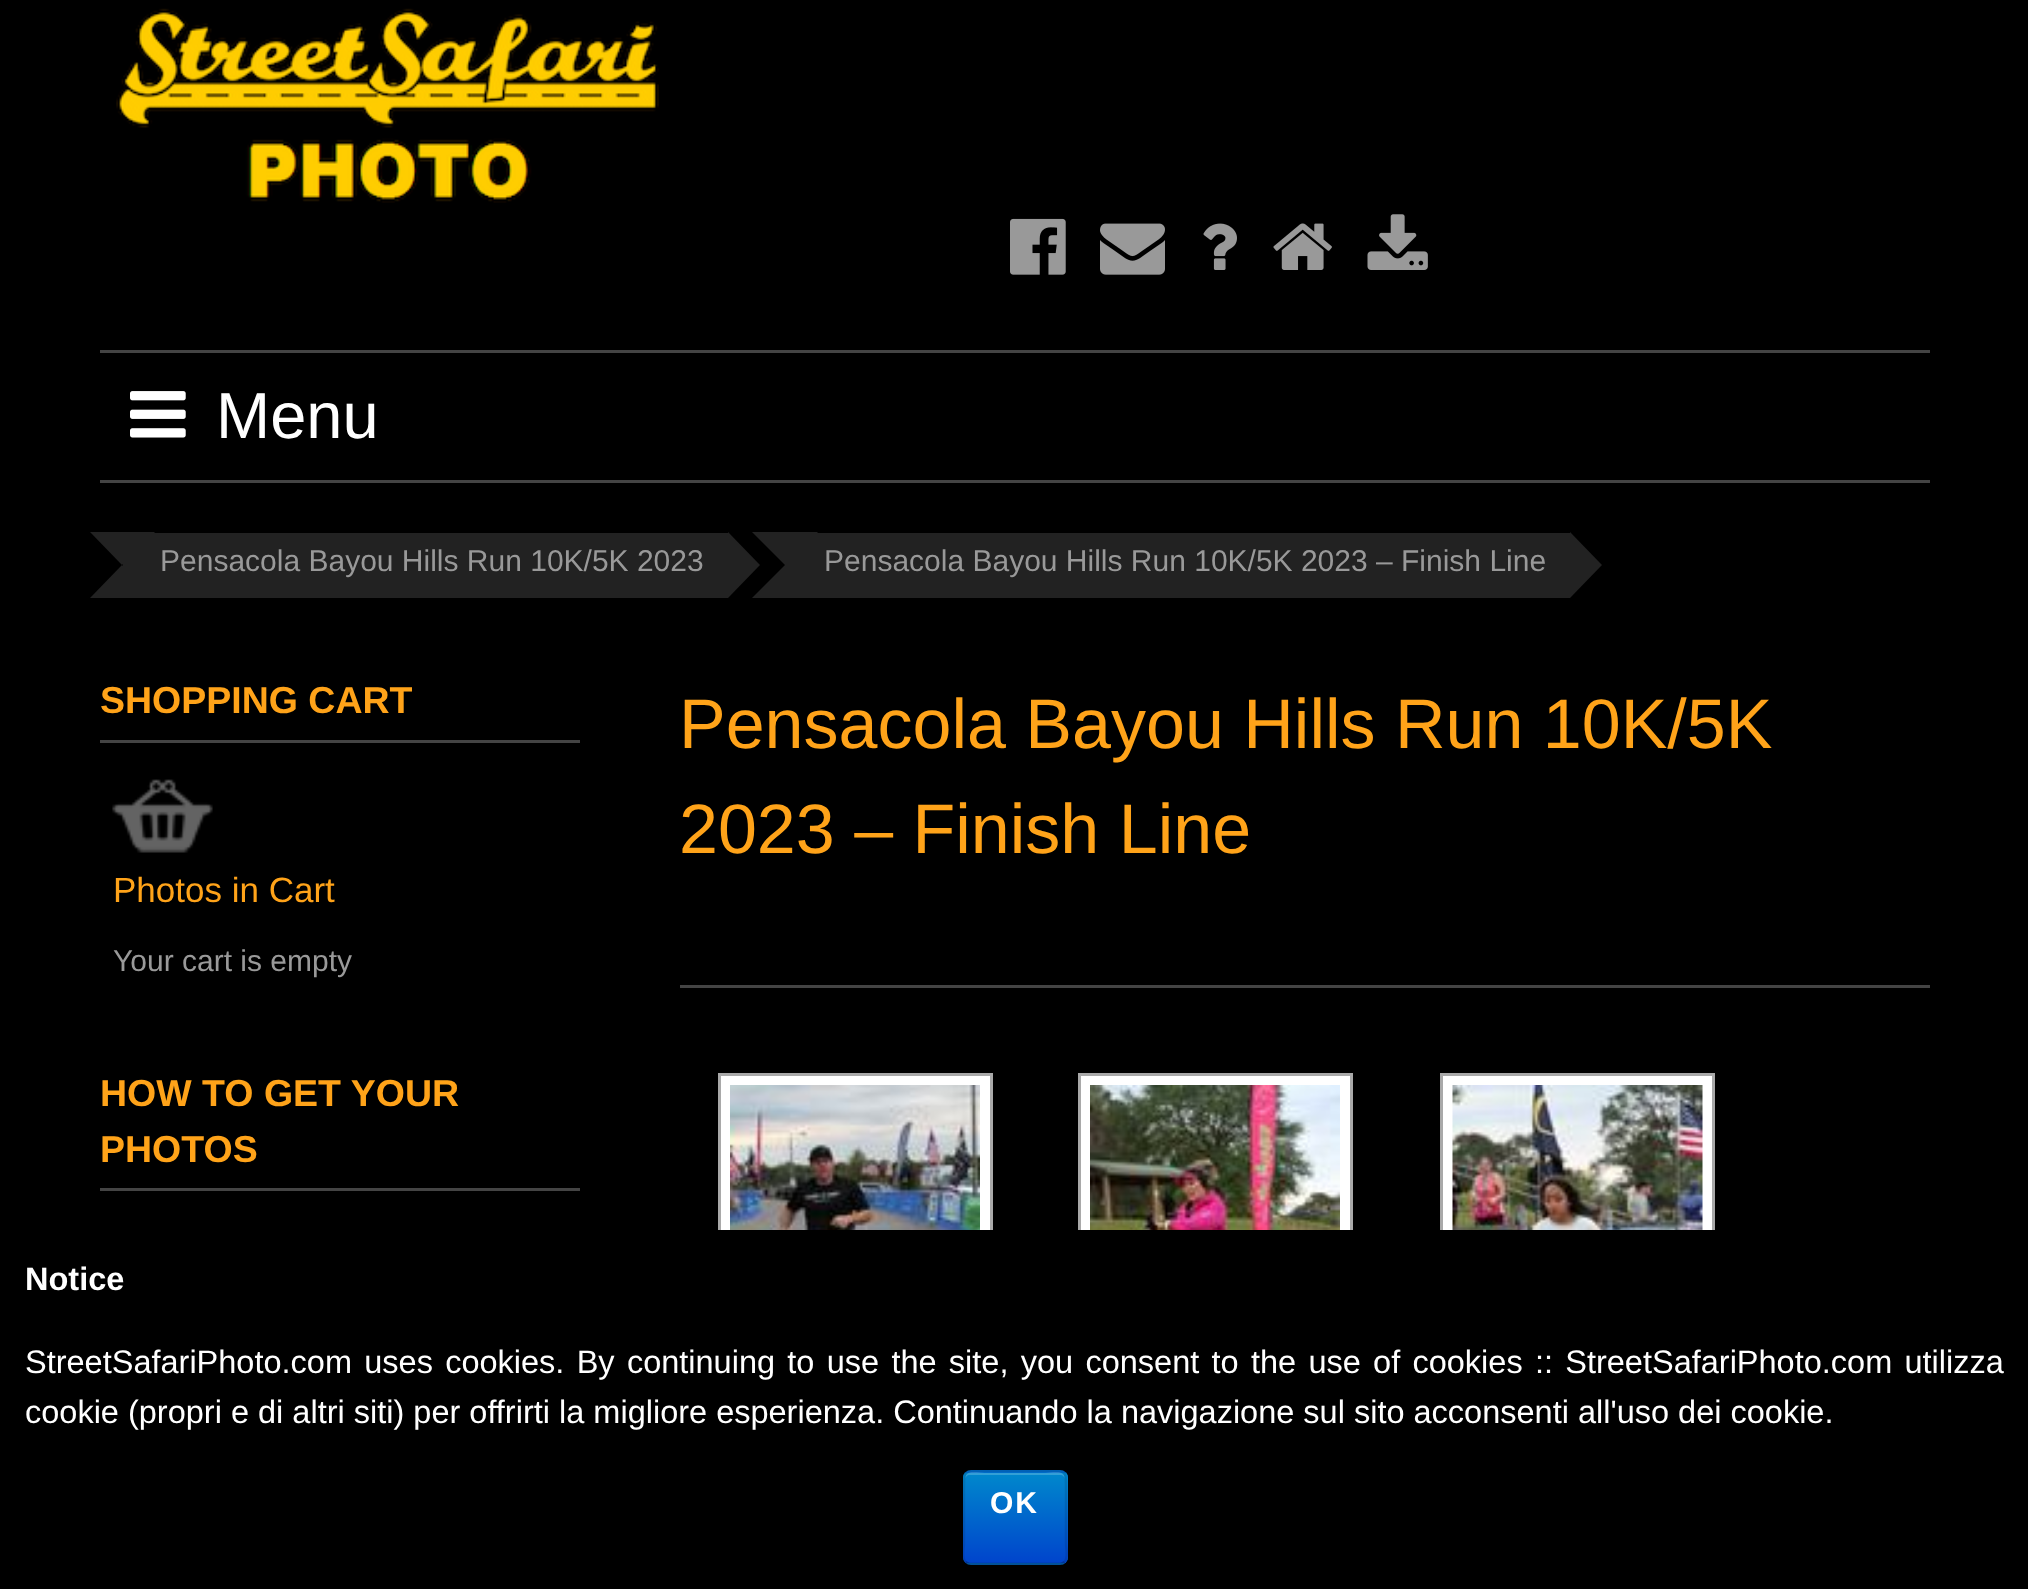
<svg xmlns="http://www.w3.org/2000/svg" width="2028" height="1589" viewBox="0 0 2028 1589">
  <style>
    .t1 { font: 65px Liberation Sans; fill: #fff; }
    .t2 { font: 30px Liberation Sans; fill: #999; }
    .t3 { font: bold 37.5px Liberation Sans; fill: #ffa319; }
    .t4 { font: 35px Liberation Sans; fill: #ffa319; }
    .t5 { font: 70px Liberation Sans; fill: #ffa319; }
    .t6 { font: bold 32.5px Liberation Sans; fill: #fff; }
    .t7 { font: 32.5px Liberation Sans; fill: #fff; }
    .t8 { font: bold 30px Liberation Sans; letter-spacing: 2px; fill: #fff; }
  </style>
  <defs>
    <clipPath id="clip1"><rect x="963" y="1470" width="105" height="95" rx="8"/></clipPath>
    <linearGradient id="g1" gradientUnits="userSpaceOnUse" x1="1015" y1="1473" x2="1015" y2="1563"><stop offset="0" stop-color="#08c"/><stop offset="1" stop-color="#04c"/></linearGradient>
  </defs>
  <rect width="100%" height="100%" fill="#000"/>
  <image x="116" y="8" width="543" height="195" href="images/1.png"/>
  <image x="1010" y="218" width="56" height="57" href="images/2.png"/>
  <image x="1100" y="223" width="65" height="52" href="images/3.png"/>
  <image x="1203" y="223" width="34" height="47" href="images/4.png"/>
  <image x="1273" y="223" width="59" height="47" href="images/5.png"/>
  <image x="1367" y="214" width="61" height="56" href="images/6.png"/>
  <rect x="100" y="350" width="1830" height="3" fill="#444"/>
  <rect x="100" y="480" width="1830" height="3" fill="#444"/>
  <image x="130" y="391" width="56" height="47" href="images/7.png"/>
  <text x="216" y="438" class="t1">Menu</text>
  <rect x="155" y="533" width="573" height="65" fill="#222"/>
  <path d="M90 532H155L122 565Z" fill="#222"/>
  <rect x="123" y="533" width="32" height="65" fill="#222"/>
  <path d="M155 598H90L122 565Z" fill="#222"/>
  <text x="160" y="571" class="t2">Pensacola Bayou Hills Run 10K/5K 2023</text>
  <path d="M728 598V532L760 565Z" fill="#222"/>
  <rect x="818" y="533" width="752" height="65" fill="#222"/>
  <path d="M752 532H818L785 565Z" fill="#222"/>
  <rect x="785" y="533" width="33" height="65" fill="#222"/>
  <path d="M818 598H752L785 565Z" fill="#222"/>
  <text x="824" y="571" class="t2">Pensacola Bayou Hills Run 10K/5K 2023 – Finish Line</text>
  <path d="M1570 598V532L1602 565Z" fill="#222"/>
  <rect x="100" y="740" width="480" height="3" fill="#444"/>
  <text x="100" y="713" class="t3">SHOPPING CART</text>
  <image x="112" y="779" width="101" height="74" href="images/8.png"/>
  <text x="113" y="902" class="t4">Photos in Cart</text>
  <text x="113" y="971" class="t2">Your cart is empty</text>
  <rect x="100" y="1188" width="480" height="3" fill="#444"/>
  <text x="100" y="1106" class="t3">HOW TO GET YOUR</text>
  <text x="100" y="1162" class="t3">PHOTOS</text>
  <text x="679" y="748" class="t5">Pensacola Bayou Hills Run 10K/5K</text>
  <text x="679" y="853" class="t5">2023 – Finish Line</text>
  <rect x="680" y="985" width="1250" height="3" fill="#444"/>
  <rect x="721" y="1076" width="269" height="154" fill="#fff"/>
  <rect x="719.5" y="1074.5" width="272" height="397" fill="none" stroke="#a9a9a9" stroke-width="3"/>
  <image x="730" y="1085" width="250" height="145" href="images/9.png"/>
  <rect x="1081" y="1076" width="269" height="154" fill="#fff"/>
  <rect x="1079.5" y="1074.5" width="272" height="397" fill="none" stroke="#a9a9a9" stroke-width="3"/>
  <image x="1090" y="1085" width="250" height="145" href="images/10.png"/>
  <rect x="1443" y="1076" width="269" height="154" fill="#fff"/>
  <rect x="1441.5" y="1074.5" width="272" height="397" fill="none" stroke="#a9a9a9" stroke-width="3"/>
  <image x="1452" y="1085" width="251" height="145" href="images/11.png"/>
  <rect x="718" y="1230" width="997" height="243" fill="#000"/>
  <text x="25" y="1290" class="t6">Notice</text>
  <text x="25" y="1373" word-spacing="3.25" class="t7">StreetSafariPhoto.com uses cookies. By continuing to use the site, you consent to the use of cookies :: StreetSafariPhoto.com utilizza</text>
  <text x="25" y="1423" class="t7">cookie (propri e di altri siti) per offrirti la migliore esperienza. Continuando la navigazione sul sito acconsenti all'uso dei cookie.</text>
  <rect x="963" y="1470" width="105" height="95" rx="8" fill="#006dcc"/>
  <g clip-path="url(#clip1)">
    <rect x="963" y="1473" width="105" height="90" fill="url(#g1)"/>
  </g>
  <path d="M970 1475H1060C1063 1475 1065 1477 1065 1480C1065 1469 1054 1473 1045 1473H985C976 1473 965 1469 965 1480C965 1477 967 1475 970 1475Z" fill="#ffffff33"/>
  <path d="M1064.5 1562C1063 1563 1061.5 1564 1060 1564H970C968.5 1564 967 1563 965.5 1562" fill="none" stroke="#00000040" stroke-width="2.5"/>
  <path d="M965.5 1562C961.5 1558 964 1546.5 964 1544V1491C964 1468.5 962.5 1471 985 1471H1045C1067.5 1471 1066 1468.5 1066 1491V1544C1066 1546.5 1068.5 1558 1064.5 1562" fill="none" stroke="#0000001a" stroke-width="2.5"/>
  <text x="990" y="1513" class="t8">OK</text>
</svg>
